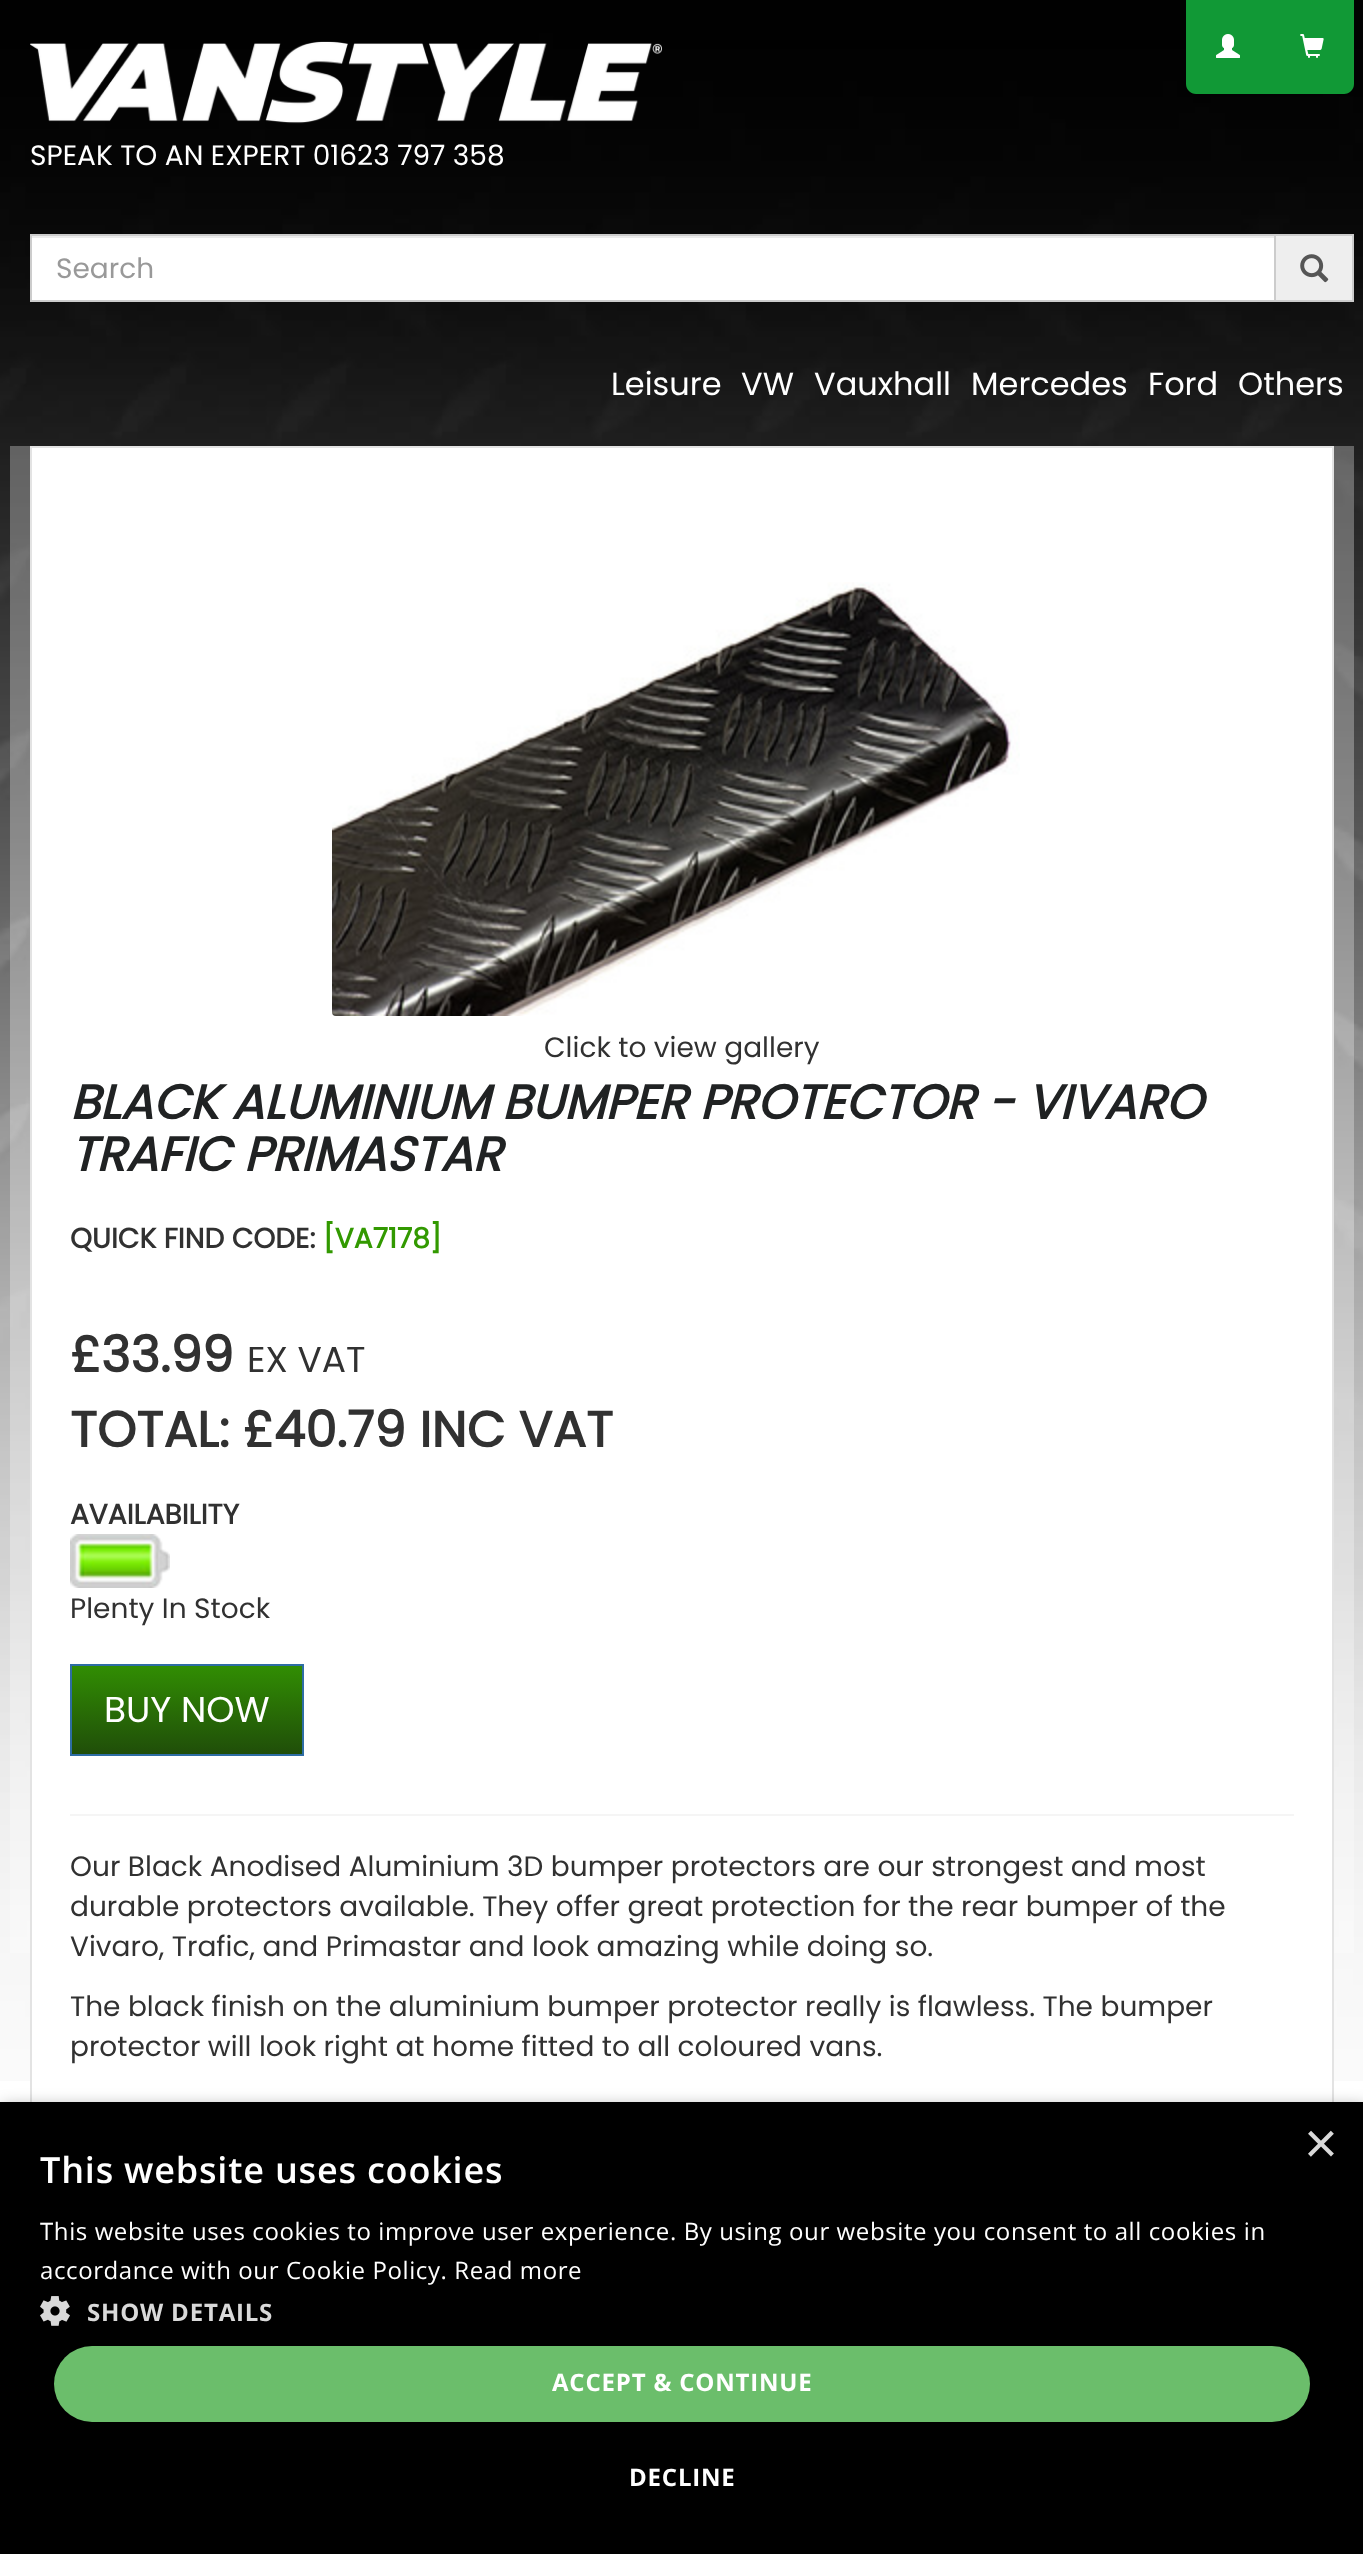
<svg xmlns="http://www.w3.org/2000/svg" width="1363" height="2554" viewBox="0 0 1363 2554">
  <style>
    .t1 { font: 28px Poppins; fill: #fff; }
    .t2 { font: 28px Poppins; fill: #999; }
    .t3 { font: 32px Poppins; fill: #fff; }
    .t4 { font: 28px Poppins; fill: #313131; }
    .t5 { font: italic bold 48px Poppins; fill: #202223; }
    .t6 { font: bold 28px Poppins; fill: #313131; }
    .t7 { font: bold 28px Poppins; fill: #329900; }
    .t8 { font: bold 50px Poppins; fill: #313131; }
    .t9 { font: 36px Poppins; fill: #313131; }
    .t10 { font: 36px Poppins; fill: #fff; }
    .t11 { font: 58px Liberation Sans; fill: #d9d9d9; }
    .t12 { font: 600 36px Open Sans; letter-spacing: 0.8px; fill: #fff; }
    .t13 { font: 24px Open Sans; letter-spacing: 0.6px; fill: #fff; }
    .t14 { font: bold 24px Open Sans; letter-spacing: 0.8px; fill: #d9d9d9; }
    .t15 { font: bold 24px Open Sans; letter-spacing: 0.8px; fill: #fff; }
  </style>
  <defs>
    <linearGradient id="g1" gradientUnits="userSpaceOnUse" x1="187" y1="1666" x2="187" y2="1754"><stop offset="0" stop-color="#318d03"/><stop offset="1" stop-color="#204e09"/></linearGradient>
  </defs>
  <rect width="100%" height="100%" fill="#fff"/>
  <image x="0" y="0" width="1363" height="2081" href="images/1.png"/>
  <path d="M1186 0H1270V94H1196C1190.5 94 1186 89.5 1186 84Z" fill="#119936"/>
  <image x="1216" y="34" width="24" height="24" href="images/2.png"/>
  <path d="M1270 0H1354V84C1354 89.5 1349.5 94 1344 94H1270Z" fill="#119936"/>
  <image x="1300" y="34" width="24" height="24" href="images/3.png"/>
  <image x="30" y="41" width="632" height="83" href="images/4.png"/>
  <text x="30" y="165" class="t1">SPEAK TO AN EXPERT 01623 797 358</text>
  <rect x="32" y="238" width="1242" height="62" fill="#fff"/>
  <rect x="32" y="236" width="1242" height="2" fill="#ececec"/>
  <rect x="31" y="235" width="1244" height="66" fill="none" stroke="#ccc" stroke-width="2"/>
  <text x="56" y="278" class="t2">Search</text>
  <rect x="1276" y="236" width="76" height="64" fill="#eee"/>
  <rect x="1276" y="234" width="78" height="2" fill="#ccc"/>
  <rect x="1352" y="234" width="2" height="68" fill="#ccc"/>
  <rect x="1276" y="300" width="78" height="2" fill="#ccc"/>
  <image x="1300" y="254" width="29" height="29" href="images/5.png"/>
  <text x="611" y="395" class="t3">Leisure</text>
  <text x="741" y="395" class="t3">VW</text>
  <text x="814" y="395" class="t3">Vauxhall</text>
  <text x="971" y="395" class="t3">Mercedes</text>
  <text x="1148" y="395" class="t3">Ford</text>
  <text x="1238" y="395" class="t3">Others</text>
  <rect x="10" y="446" width="1344" height="1507" fill="#ffffff4d"/>
  <rect x="32" y="448" width="1300" height="1633" fill="#fff"/>
  <rect x="31" y="447" width="1302" height="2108" fill="none" stroke="#e3e3e3" stroke-width="2"/>
  <image x="332" y="582" width="688" height="434" href="images/6.png"/>
  <text x="544" y="1057" class="t4">Click to view gallery</text>
  <text x="70" y="1119" class="t5">BLACK ALUMINIUM BUMPER PROTECTOR - VIVARO</text>
  <text x="70" y="1171" class="t5">TRAFIC PRIMASTAR</text>
  <text x="70" y="1248" class="t6">QUICK FIND CODE:</text>
  <text x="323" y="1248" class="t7">[VA7178]</text>
  <text x="70" y="1372" class="t8">£33.99</text>
  <text x="247" y="1372" class="t9">EX VAT</text>
  <text x="70" y="1447" class="t8">TOTAL: £40.79 INC VAT</text>
  <text x="70" y="1524" class="t6">AVAILABILITY</text>
  <image x="70" y="1534" width="100" height="54" href="images/7.png"/>
  <text x="70" y="1618" class="t4">Plenty In Stock</text>
  <rect x="72" y="1666" width="230" height="88" fill="url(#g1)"/>
  <rect x="71" y="1665" width="232" height="90" fill="none" stroke="#2e6da4" stroke-width="2"/>
  <text x="104" y="1722" class="t10">BUY NOW</text>
  <rect x="70" y="1814" width="1224" height="2" fill="#f5f5f5"/>
  <text x="70" y="1876" class="t4">Our Black Anodised Aluminium 3D bumper protectors are our strongest and most</text>
  <text x="70" y="1916" class="t4">durable protectors available. They offer great protection for the rear bumper of the</text>
  <text x="70" y="1956" class="t4">Vivaro, Trafic, and Primastar and look amazing while doing so.</text>
  <text x="70" y="2016" class="t4">The black finish on the aluminium bumper protector really is flawless. The bumper</text>
  <text x="70" y="2056" class="t4">protector will look right at home fitted to all coloured vans.</text>
  <rect x="2" y="2106" width="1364" height="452" fill="#00000059" filter="blur(8px)"/>
  <rect x="0" y="2102" width="1363" height="452" fill="#000"/>
  <text x="1304" y="2163" class="t11">×</text>
  <text x="40" y="2183" class="t12">This website uses cookies</text>
  <text x="40" y="2240" class="t13">This website uses cookies to improve user experience. By using our website you consent to all cookies in</text>
  <text x="40" y="2279" class="t13">accordance with our Cookie Policy. Read more</text>
  <image x="40" y="2296" width="30" height="30" href="images/8.png"/>
  <text x="87" y="2321" class="t14">SHOW DETAILS</text>
  <rect x="54" y="2346" width="1256" height="76" rx="38" fill="#6bbe6b"/>
  <text x="552" y="2391" class="t15">ACCEPT &amp; CONTINUE</text>
  <text x="629" y="2486" class="t15">DECLINE</text>
</svg>
